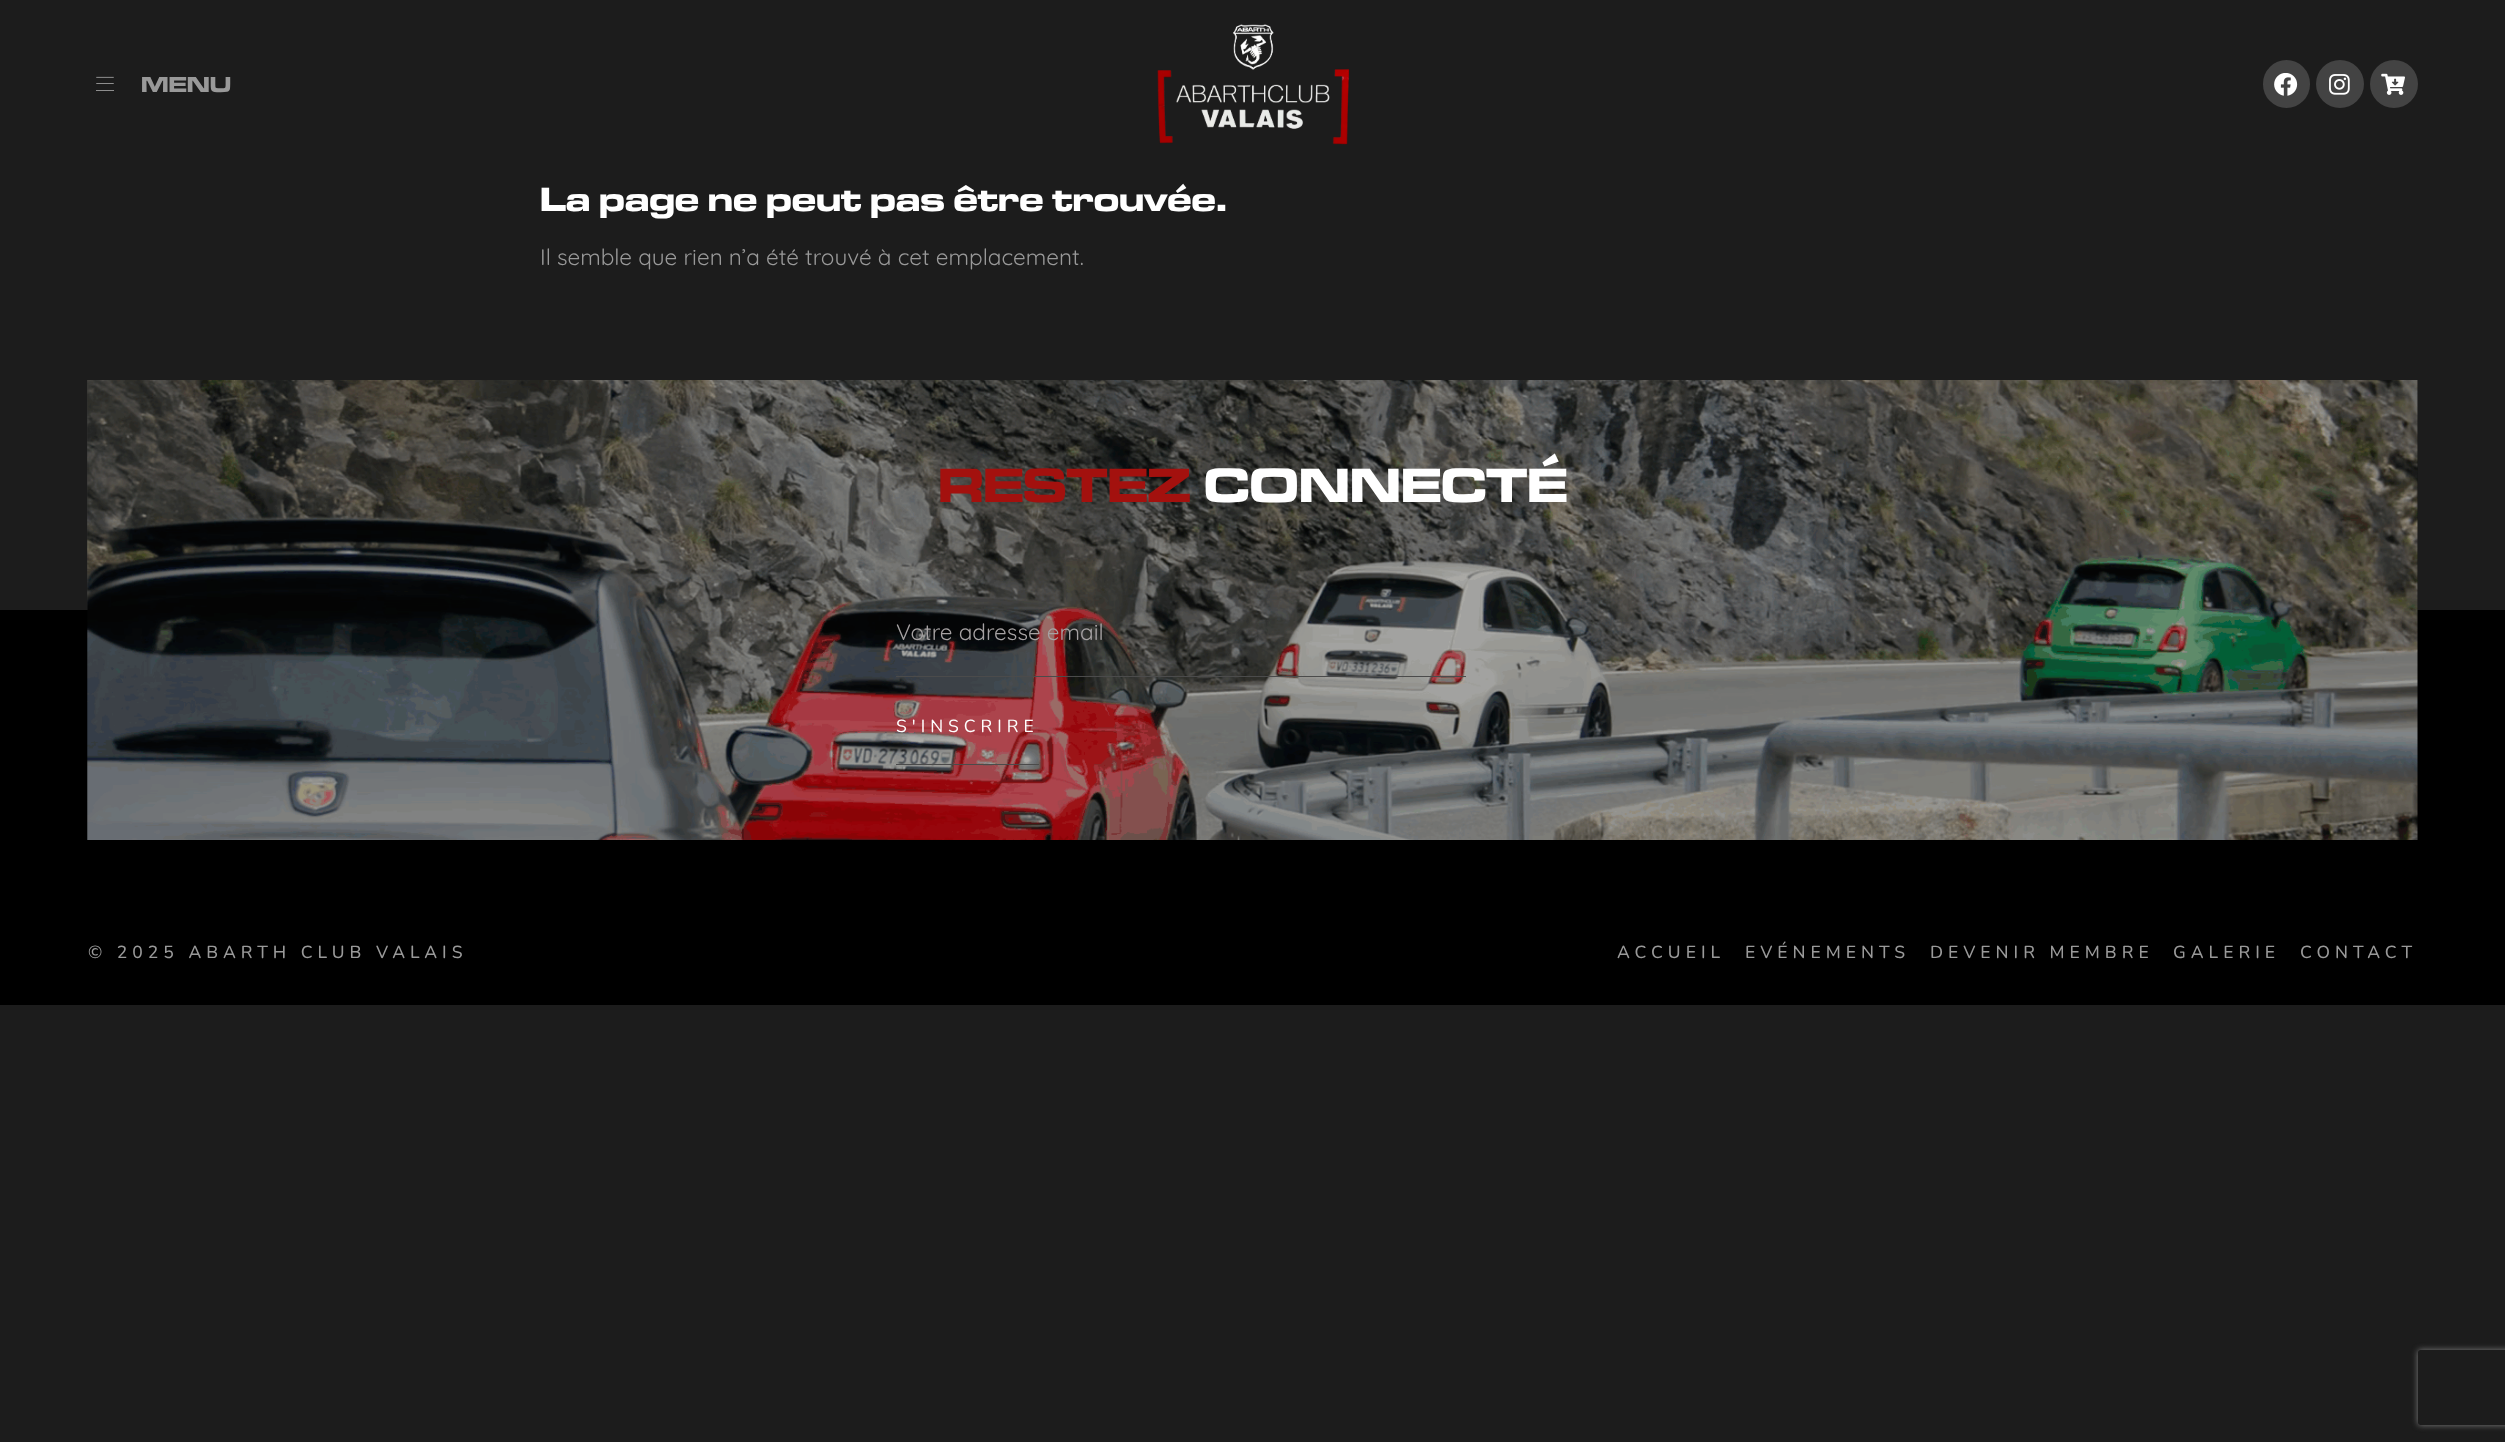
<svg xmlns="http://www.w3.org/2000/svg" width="2505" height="1442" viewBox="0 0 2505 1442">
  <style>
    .t1 { font: bold 22.5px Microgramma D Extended; fill: #999; }
    .t2 { font: bold 35px Microgramma D Extended; fill: #fff; }
    .t3 { font: 22.5px Quicksand; fill: #999; }
    .t4 { font: bold 50px Microgramma D Extended; fill: #a3110e; }
    .t5 { font: bold 50px Microgramma D Extended; fill: #fff; }
    .t6 { font: 22.5px Quicksand; fill: #a6a2a3; }
    .t7 { font: 17.5px Nunito; letter-spacing: 5px; fill: #fff; }
    .t8 { font: 500 17.5px Nunito; letter-spacing: 5px; fill: #999; }
  </style>
  <defs>
    <clipPath id="clip1"><path d="M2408 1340H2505V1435H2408ZM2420.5 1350H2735.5C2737 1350 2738 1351 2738 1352.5V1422.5C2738 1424 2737 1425 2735.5 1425H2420.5C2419 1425 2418 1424 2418 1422.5V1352.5C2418 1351 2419 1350 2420.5 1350Z" clip-rule="evenodd"/></clipPath>
  </defs>
  <rect width="100%" height="100%" fill="#1c1c1c"/>
  <rect x="2417" y="380" width="1" height="230" fill="#141414"/>
  <image x="96" y="76" width="18" height="15" href="images/1.png"/>
  <text x="141" y="92" class="t1">MENU</text>
  <image x="1157" y="24" width="193" height="121" href="images/2.png"/>
  <rect x="2263" y="60" width="47" height="48" rx="23.5" fill="#434343"/>
  <image x="2274" y="73" width="24" height="23" href="images/3.png"/>
  <circle cx="2340" cy="84" r="24" fill="#434343"/>
  <image x="2329" y="74" width="21" height="21" href="images/4.png"/>
  <circle cx="2394" cy="84" r="24" fill="#434343"/>
  <image x="2381" y="73" width="24" height="22" href="images/5.png"/>
  <text x="540" y="211" class="t2">La page ne peut pas être trouvée.</text>
  <text x="540" y="265" class="t3">Il semble que rien n’a été trouvé à cet emplacement.</text>
  <rect x="0" y="610" width="2505" height="395" fill="#000"/>
  <image x="87" y="380" width="2331" height="460" href="images/6.png"/>
  <text x="938" y="502" class="t4">RESTEZ</text>
  <text x="1204" y="502" class="t5">CONNECTÉ</text>
  <rect x="896" y="676" width="570" height="1" fill="#4b4b4b"/>
  <text x="896" y="640" class="t6">Votre adresse email</text>
  <rect x="896" y="764" width="143" height="1" fill="#4b4b4b"/>
  <text x="896" y="732" class="t7">S'INSCRIRE</text>
  <g clip-path="url(#clip1)">
    <rect x="2418" y="1350" width="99" height="75" rx="2.5" fill="#808080" filter="blur(3px)"/>
  </g>
  <text x="88" y="958" class="t8">© 2025 ABARTH CLUB VALAIS</text>
  <text x="1617" y="958" class="t8">ACCUEIL</text>
  <text x="1745" y="958" class="t8">EVÉNEMENTS</text>
  <text x="1930" y="958" class="t8">DEVENIR MEMBRE</text>
  <text x="2173" y="958" class="t8">GALERIE</text>
  <text x="2300" y="958" class="t8">CONTACT</text>
</svg>
